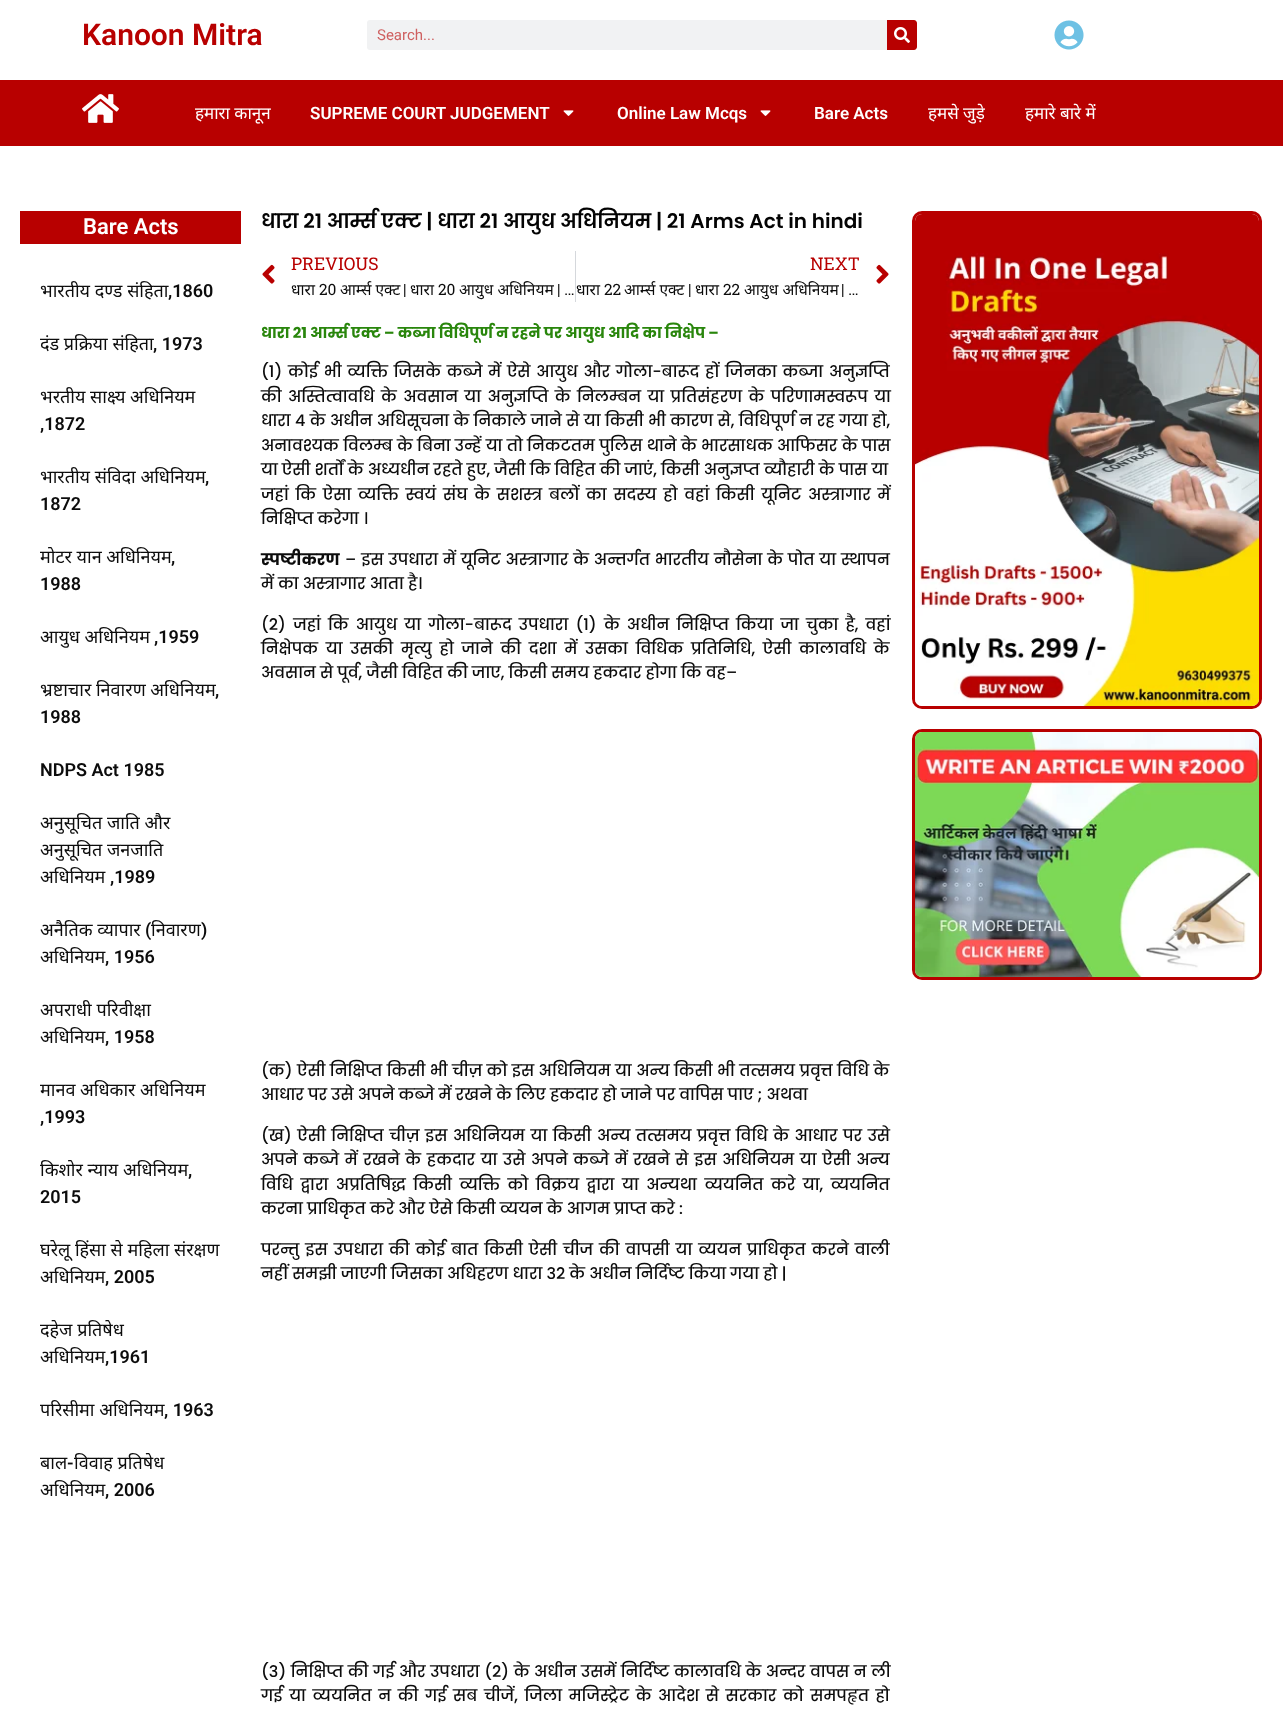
<svg xmlns="http://www.w3.org/2000/svg" width="1283" height="1718" viewBox="0 0 1283 1718">
  <style>
    .t1 { font: 600 30px Roboto; fill: #b80000; }
    .t2 { font: 15px Roboto; fill: #cf6161; }
    .t3 { font: 17px Noto Sans; fill: #fff; }
    .t4 { font: 600 17px Roboto; fill: #fff; }
    .t5 { font: 600 22px Roboto; fill: #fff; }
    .t6 { font: 18px Noto Sans; fill: #0c0c0c; }
    .t7 { font: 600 18px Roboto; fill: #0c0c0c; }
    .t8 { font: 600 20px Poppins; fill: #030303; }
    .t9 { font: 17.5px Roboto Slab; fill: #b80000; }
    .t10 { font: 15.5px Noto Sans; fill: #0c0c0c; }
    .t11 { font: 15.5px Roboto Slab; fill: #0c0c0c; }
    .t12 { font: bold 15px Poppins; fill: #29860c; }
    .t13 { font: 500 16px Poppins; fill: #0c0c0c; }
    .t14 { font: bold 16px Poppins; fill: #0c0c0c; }
  </style>
  <rect width="100%" height="100%" fill="#fff"/>
  <text x="82" y="45" class="t1">Kanoon Mitra</text>
  <rect x="367" y="20" width="550" height="30" rx="3" fill="#f1f2f3"/>
  <text x="377" y="40" class="t2">Search...</text>
  <path d="M887 20H914C915.5 20 917 21.5 917 23V47C917 48.5 915.5 50 914 50H887Z" fill="#b80000"/>
  <image x="894" y="27" width="16" height="16" href="images/1.png"/>
  <image x="1054" y="20" width="30" height="30" href="images/2.png"/>
  <rect x="0" y="80" width="1283" height="66" fill="#b80000"/>
  <image x="82" y="94" width="37" height="29" href="images/3.png"/>
  <text x="195" y="119" class="t3">हमारा कानून</text>
  <text x="310" y="119" class="t4">SUPREME COURT JUDGEMENT</text>
  <image x="563" y="110" width="11" height="6" href="images/4.png"/>
  <text x="617" y="119" class="t4">Online Law Mcqs</text>
  <image x="760" y="110" width="11" height="6" href="images/4.png"/>
  <text x="814" y="119" class="t4">Bare Acts</text>
  <text x="928" y="119" class="t3">हमसे जुड़े</text>
  <text x="1025" y="119" class="t3">हमारे बारे में</text>
  <rect x="20" y="211" width="221" height="33" fill="#b80000"/>
  <text x="83" y="234" class="t5">Bare Acts</text>
  <text x="40" y="297" class="t6">भारतीय दण्ड संहिता</text>
  <text x="168" y="297" class="t7">,1860</text>
  <text x="40" y="350" class="t6">दंड प्रक्रिया संहिता</text>
  <text x="153" y="350" class="t7">, 1973</text>
  <text x="40" y="403" class="t6">भरतीय साक्ष्य अधिनियम</text>
  <text x="40" y="430" class="t7">,1872</text>
  <text x="40" y="483" class="t6">भारतीय संविदा अधिनियम</text>
  <text x="205" y="483" class="t7">,</text>
  <text x="40" y="510" class="t7">1872</text>
  <text x="40" y="563" class="t6">मोटर यान अधिनियम</text>
  <text x="171" y="563" class="t7">,</text>
  <text x="40" y="590" class="t7">1988</text>
  <text x="40" y="643" class="t6">आयुध अधिनियम</text>
  <text x="154" y="643" class="t7">,1959</text>
  <text x="40" y="696" class="t6">भ्रष्टाचार निवारण अधिनियम</text>
  <text x="215" y="696" class="t7">,</text>
  <text x="40" y="723" class="t7">1988</text>
  <text x="40" y="776" class="t7">NDPS Act 1985</text>
  <text x="40" y="829" class="t6">अनुसूचित जाति और</text>
  <text x="40" y="856" class="t6">अनुसूचित जनजाति</text>
  <text x="40" y="883" class="t6">अधिनियम</text>
  <text x="110" y="883" class="t7">,1989</text>
  <text x="40" y="936" class="t6">अनैतिक व्यापार</text>
  <text x="145" y="936" class="t7">(</text>
  <text x="151" y="936" class="t6">निवारण</text>
  <text x="201" y="936" class="t7">)</text>
  <text x="40" y="963" class="t6">अधिनियम</text>
  <text x="105" y="963" class="t7">, 1956</text>
  <text x="40" y="1016" class="t6">अपराधी परिवीक्षा</text>
  <text x="40" y="1043" class="t6">अधिनियम</text>
  <text x="105" y="1043" class="t7">, 1958</text>
  <text x="40" y="1096" class="t6">मानव अधिकार अधिनियम</text>
  <text x="40" y="1123" class="t7">,1993</text>
  <text x="40" y="1176" class="t6">किशोर न्याय अधिनियम</text>
  <text x="188" y="1176" class="t7">,</text>
  <text x="40" y="1203" class="t7">2015</text>
  <text x="40" y="1256" class="t6">घरेलू हिंसा से महिला संरक्षण</text>
  <text x="40" y="1283" class="t6">अधिनियम</text>
  <text x="105" y="1283" class="t7">, 2005</text>
  <text x="40" y="1336" class="t6">दहेज प्रतिषेध</text>
  <text x="40" y="1363" class="t6">अधिनियम</text>
  <text x="105" y="1363" class="t7">,1961</text>
  <text x="40" y="1416" class="t6">परिसीमा अधिनियम</text>
  <text x="164" y="1416" class="t7">, 1963</text>
  <text x="40" y="1469" class="t6">बाल</text>
  <text x="67" y="1469" class="t7">-</text>
  <text x="74" y="1469" class="t6">विवाह प्रतिषेध</text>
  <text x="40" y="1496" class="t6">अधिनियम</text>
  <text x="105" y="1496" class="t7">, 2006</text>
  <text x="261" y="228" class="t8">धारा 21 आर्म्स एक्ट | धारा 21 आयुध अधिनियम | 21 Arms Act in hindi</text>
  <image x="262" y="264" width="13" height="20" href="images/5.png"/>
  <text x="291" y="270" class="t9">PREVIOUS</text>
  <text x="291" y="295" class="t10">धारा</text>
  <text x="319" y="295" class="t11">20</text>
  <text x="340" y="295" class="t10">आर्म्स एक्ट</text>
  <text x="403" y="295" class="t11">|</text>
  <text x="410" y="295" class="t10">धारा</text>
  <text x="438" y="295" class="t11">20</text>
  <text x="459" y="295" class="t10">आयुध अधिनियम</text>
  <text x="557" y="295" class="t11">| …</text>
  <rect x="575" y="251" width="1" height="51" fill="#d5d8dc"/>
  <text x="810" y="270" class="t9">NEXT</text>
  <text x="576" y="295" class="t10">धारा</text>
  <text x="604" y="295" class="t11">22</text>
  <text x="624" y="295" class="t10">आर्म्स एक्ट</text>
  <text x="688" y="295" class="t11">|</text>
  <text x="695" y="295" class="t10">धारा</text>
  <text x="723" y="295" class="t11">22</text>
  <text x="744" y="295" class="t10">आयुध अधिनियम</text>
  <text x="841" y="295" class="t11">| …</text>
  <image x="876" y="264" width="13" height="20" href="images/6.png"/>
  <text x="261" y="338" class="t12">धारा 21 आर्म्स एक्ट – कब्जा विधिपूर्ण न रहने पर आयुध आदि का निक्षेप –</text>
  <text x="261" y="377" word-spacing="1.6" class="t13">(1) कोई भी व्यक्ति जिसके कब्जे में ऐसे आयुध और गोला-बारूद हों जिनका कब्जा अनुज्ञप्ति</text>
  <text x="261" y="402" word-spacing="2.25" class="t13">की अस्तित्वावधि के अवसान या अनुज्ञप्ति के निलम्बन या प्रतिसंहरण के परिणामस्वरूप या</text>
  <text x="261" y="426" word-spacing="0.25" class="t13">धारा 4 के अधीन अधिसूचना के निकाले जाने से या किसी भी कारण से, विधिपूर्ण न रह गया हो,</text>
  <text x="261" y="451" word-spacing="0.2" class="t13">अनावश्यक विलम्ब के बिना उन्हें या तो निकटतम पुलिस थाने के भारसाधक आफिसर के पास</text>
  <text x="261" y="475" class="t13">या ऐसी शर्तों के अध्यधीन रहते हुए, जैसी कि विहित की जाएं, किसी अनुज्ञप्त व्यौहारी के पास या</text>
  <text x="261" y="500" word-spacing="2.6" class="t13">जहां कि ऐसा व्यक्ति स्वयं संघ के सशस्त्र बलों का सदस्य हो वहां किसी यूनिट अस्त्रागार में</text>
  <text x="261" y="524" class="t13">निक्षिप्त करेगा ।</text>
  <text x="261" y="565" class="t14">स्पष्टीकरण</text>
  <text x="345" y="565" word-spacing="0.75" class="t13">– इस उपधारा में यूनिट अस्त्रागार के अन्तर्गत भारतीय नौसेना के पोत या स्थापन</text>
  <text x="261" y="589" class="t13">में का अस्त्रागार आता है।</text>
  <text x="261" y="630" word-spacing="3" class="t13">(2) जहां कि आयुध या गोला-बारूद उपधारा (1) के अधीन निक्षिप्त किया जा चुका है, वहां</text>
  <text x="261" y="654" word-spacing="3.6" class="t13">निक्षेपक या उसकी मृत्यु हो जाने की दशा में उसका विधिक प्रतिनिधि, ऐसी कालावधि के</text>
  <text x="261" y="678" class="t13">अवसान से पूर्व, जैसी विहित की जाए, किसी समय हकदार होगा कि वह–</text>
  <text x="261" y="1076" word-spacing="0.3" class="t13">(क) ऐसी निक्षिप्त किसी भी चीज़ को इस अधिनियम या अन्य किसी भी तत्समय प्रवृत्त विधि के</text>
  <text x="261" y="1100" class="t13">आधार पर उसे अपने कब्जे में रखने के लिए हकदार हो जाने पर वापिस पाए ; अथवा</text>
  <text x="261" y="1141" word-spacing="1.4" class="t13">(ख) ऐसी निक्षिप्त चीज़ इस अधिनियम या किसी अन्य तत्समय प्रवृत्त विधि के आधार पर उसे</text>
  <text x="261" y="1165" word-spacing="1.5" class="t13">अपने कब्जे में रखने के हकदार या उसे अपने कब्जे में रखने से इस अधिनियम या ऐसी अन्य</text>
  <text x="261" y="1190" word-spacing="3.4" class="t13">विधि द्वारा अप्रतिषिद्ध किसी व्यक्ति को विक्रय द्वारा या अन्यथा व्ययनित करे या, व्ययनित</text>
  <text x="261" y="1214" class="t13">करना प्राधिकृत करे और ऐसे किसी व्ययन के आगम प्राप्त करे :</text>
  <text x="261" y="1255" word-spacing="1.75" class="t13">परन्तु इस उपधारा की कोई बात किसी ऐसी चीज की वापसी या व्ययन प्राधिकृत करने वाली</text>
  <text x="261" y="1279" class="t13">नहीं समझी जाएगी जिसका अधिहरण धारा 32 के अधीन निर्दिष्ट किया गया हो |</text>
  <text x="261" y="1677" word-spacing="0.4" class="t13">(3) निक्षिप्त की गई और उपधारा (2) के अधीन उसमें निर्दिष्ट कालावधि के अन्दर वापस न ली</text>
  <text x="261" y="1701" word-spacing="2.5" class="t13">गई या व्ययनित न की गई सब चीजें, जिला मजिस्ट्रेट के आदेश से सरकार को समपहृत हो</text>
  <rect x="913.5" y="212.5" width="347" height="495" rx="8.5" fill="none" stroke="#b80000" stroke-width="3"/>
  <image x="915" y="214" width="344" height="492" href="images/7.png"/>
  <rect x="913.5" y="730.5" width="347" height="248" rx="8.5" fill="none" stroke="#b80000" stroke-width="3"/>
  <image x="915" y="732" width="344" height="245" href="images/8.png"/>
</svg>
